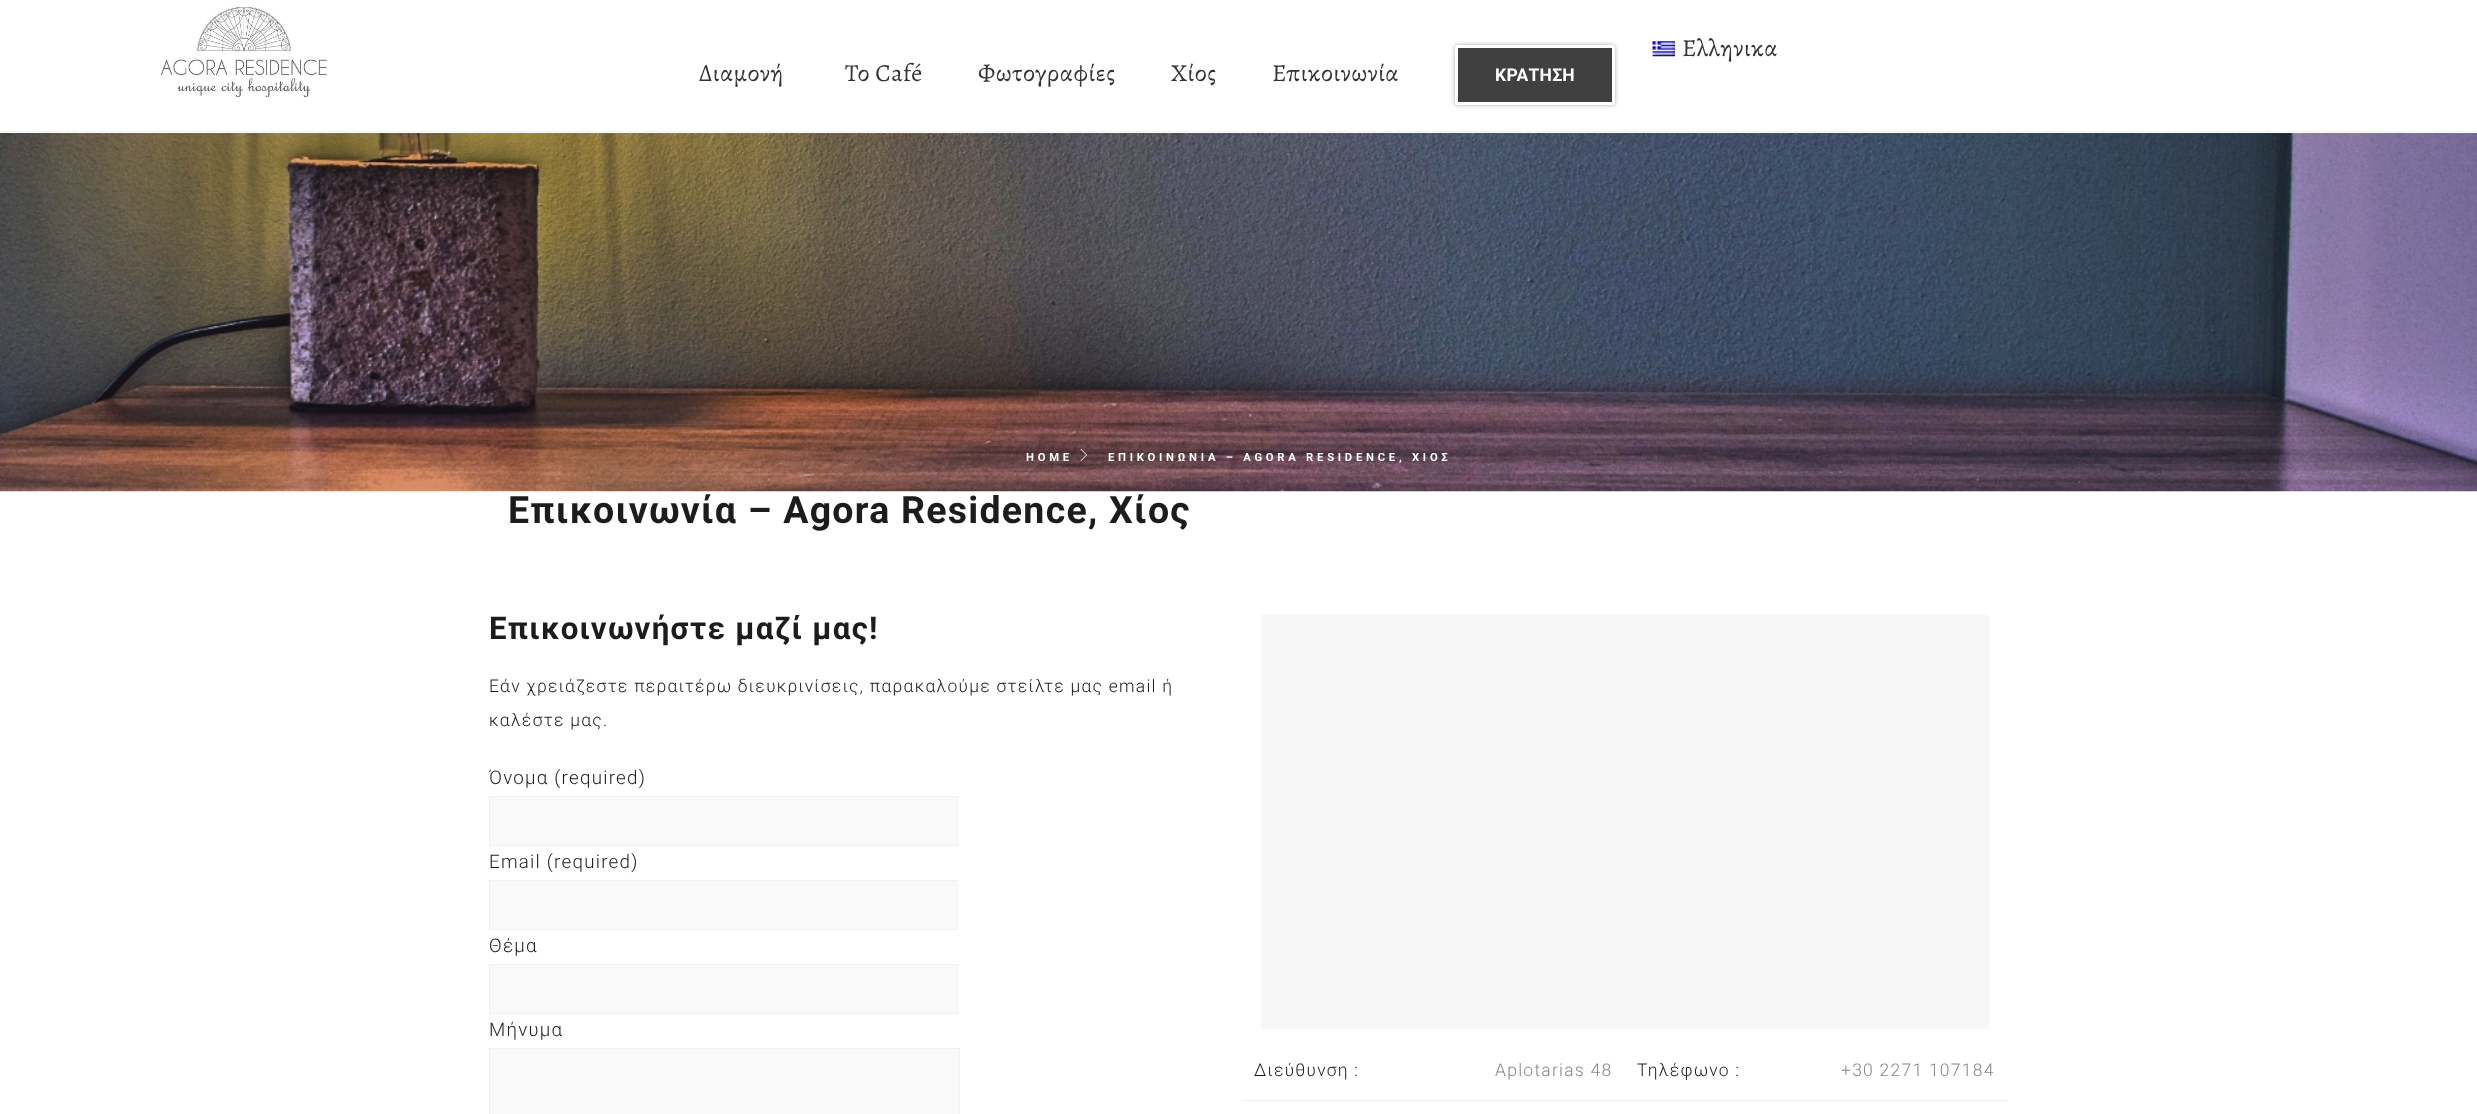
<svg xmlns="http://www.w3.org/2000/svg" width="2477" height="1114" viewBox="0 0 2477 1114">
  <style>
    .t1 { font: 24.5px Alegreya; letter-spacing: 0.5px; fill: #333; }
    .t2 { font: bold 17.5px Roboto; letter-spacing: 0.25px; fill: #fff; }
    .t3 { font: bold 11.25px Roboto; letter-spacing: 3.75px; fill: #fff; }
    .t4 { font: bold 37.5px Roboto; letter-spacing: 1.25px; fill: #1c1c1c; }
    .t5 { font: bold 31.25px Roboto; letter-spacing: 1.25px; fill: #1c1c1c; }
    .t6 { font: 300 17.5px Roboto; letter-spacing: 1.25px; fill: #1c1c1c; }
    .t7 { font: 300 18.75px Roboto; letter-spacing: 1.25px; fill: #1c1c1c; }
    .t8 { font: 300 17.5px Roboto; letter-spacing: 1.25px; fill: #878787; }
  </style>
  <rect width="100%" height="100%" fill="#fff"/>
  <rect x="0" y="131" width="2477" height="1" fill="#f1f1f1"/>
  <image x="160" y="7" width="167" height="91" href="images/1.png"/>
  <image x="1652" y="41" width="23" height="16" href="images/2.png"/>
  <text x="1682" y="56" class="t1">Ελληνικα</text>
  <text x="699" y="81" class="t1">Διαμονή</text>
  <text x="845" y="81" class="t1">Το Café</text>
  <text x="978" y="81" class="t1">Φωτογραφίες</text>
  <text x="1171" y="81" class="t1">Χίος</text>
  <text x="1272" y="81" class="t1">Επικοινωνία</text>
  <rect x="1455" y="45" width="160" height="60" rx="2.5" fill="#aaa" filter="blur(2px)"/>
  <rect x="1456.5" y="46.5" width="157" height="57" rx="1" fill="#404040" stroke="#fff" stroke-width="3"/>
  <text x="1495" y="81" class="t2">ΚΡΑΤΗΣΗ</text>
  <image x="0" y="133" width="2477" height="359" href="images/3.png"/>
  <text x="1026" y="461" class="t3">HOME</text>
  <image x="1080" y="449" width="7" height="12" href="images/4.png"/>
  <text x="1108" y="461" class="t3">ΕΠΙΚΟΙΝΩΝΙΑ – AGORA RESIDENCE, ΧΙΟΣ</text>
  <text x="508" y="523" class="t4">Επικοινωνία – Agora Residence, Χίος</text>
  <text x="489" y="639" class="t5">Επικοινωνήστε μαζί μας!</text>
  <text x="489" y="692" class="t6">Εάν χρειάζεστε περαιτέρω διευκρινίσεις, παρακαλούμε στείλτε μας email ή</text>
  <text x="489" y="726" class="t6">καλέστε μας.</text>
  <text x="489" y="784" class="t7">Όνομα (required)</text>
  <rect x="489.5" y="796.5" width="468" height="49" fill="#f9f9f9" stroke="#f1f1f1"/>
  <text x="489" y="868" class="t7">Email (required)</text>
  <rect x="489.5" y="880.5" width="468" height="49" fill="#f9f9f9" stroke="#f1f1f1"/>
  <text x="489" y="952" class="t7">Θέμα</text>
  <rect x="489.5" y="964.5" width="468" height="49" fill="#f9f9f9" stroke="#f1f1f1"/>
  <text x="489" y="1036" class="t7">Μήνυμα</text>
  <rect x="489.5" y="1048.5" width="470" height="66" fill="#f9f9f9" stroke="#f1f1f1"/>
  <rect x="1261" y="614" width="728" height="415" fill="#f7f7f7"/>
  <text x="1254" y="1076" class="t6">Διεύθυνση :</text>
  <text x="1495" y="1076" class="t8">Aplotarias 48</text>
  <rect x="1243" y="1100" width="765" height="1" fill="#f1f1f1"/>
  <text x="1637" y="1076" class="t6">Τηλέφωνο :</text>
  <text x="1841" y="1076" class="t8">+30 2271 107184</text>
</svg>
